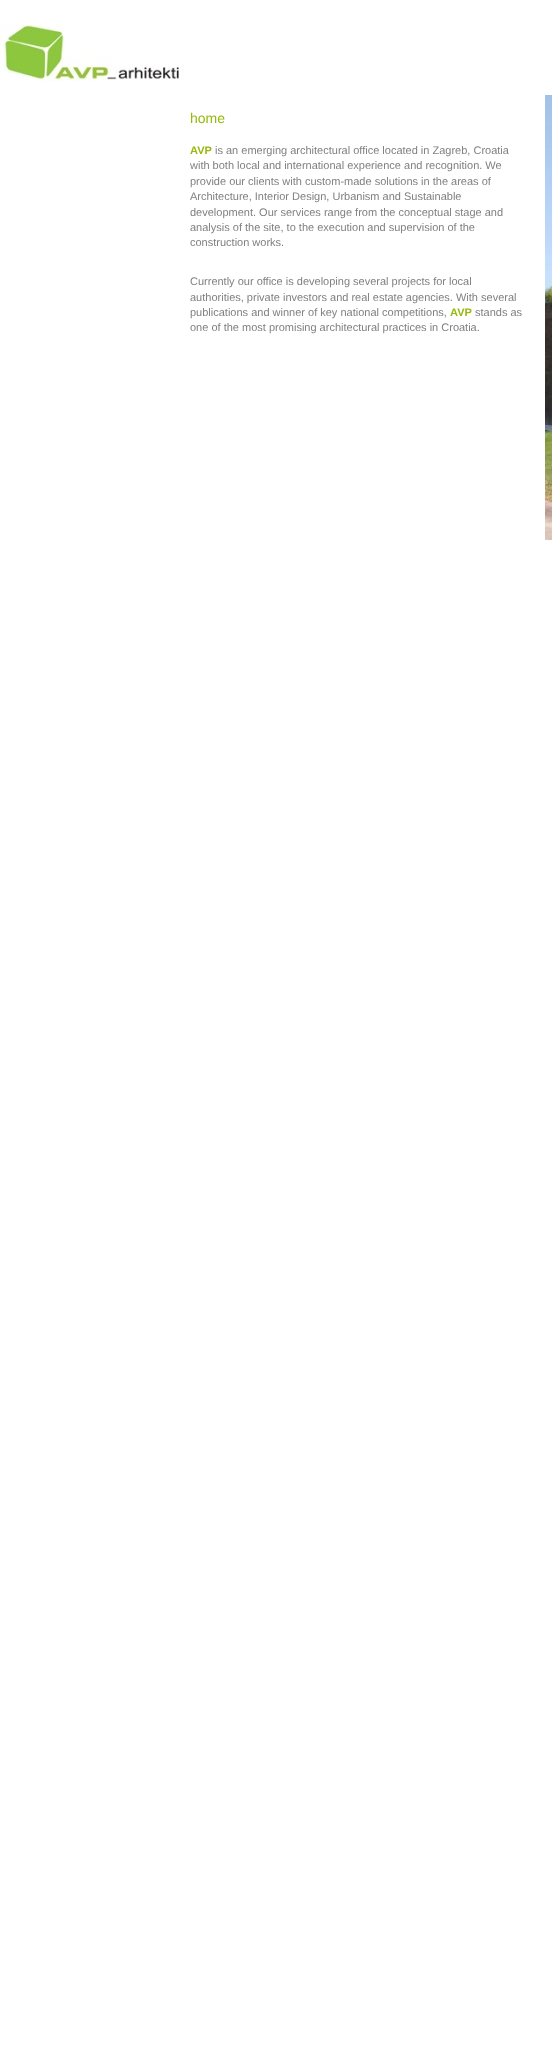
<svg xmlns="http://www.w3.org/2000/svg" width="552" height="2063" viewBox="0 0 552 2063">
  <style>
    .t1 { font: 14px Liberation Sans; fill: #97b90d; }
    .t2 { font: bold 11px Liberation Sans; fill: #97b90d; }
    .t3 { font: 11px Liberation Sans; fill: #808080; }
  </style>
  <rect width="100%" height="100%" fill="#fff"/>
  <image x="0" y="25" width="184" height="57" href="images/1.png"/>
  <text x="190" y="123" class="t1">home</text>
  <text x="190" y="154" class="t2">AVP</text>
  <text x="215" y="154" class="t3">is an emerging architectural office located in Zagreb, Croatia</text>
  <text x="190" y="169" class="t3">with both local and international experience and recognition. We</text>
  <text x="190" y="185" class="t3">provide our clients with custom-made solutions in the areas of</text>
  <text x="190" y="200" class="t3">Architecture, Interior Design, Urbanism and Sustainable</text>
  <text x="190" y="216" class="t3">development. Our services range from the conceptual stage and</text>
  <text x="190" y="231" class="t3">analysis of the site, to the execution and supervision of the</text>
  <text x="190" y="246" class="t3">construction works.</text>
  <text x="190" y="285" class="t3">Currently our office is developing several projects for local</text>
  <text x="190" y="301" class="t3">authorities, private investors and real estate agencies. With several</text>
  <text x="190" y="316" class="t3">publications and winner of key national competitions,</text>
  <text x="450" y="316" class="t2">AVP</text>
  <text x="475" y="316" class="t3">stands as</text>
  <text x="190" y="331" class="t3">one of the most promising architectural practices in Croatia.</text>
  <image x="545" y="95" width="7" height="445" href="images/2.png"/>
</svg>
